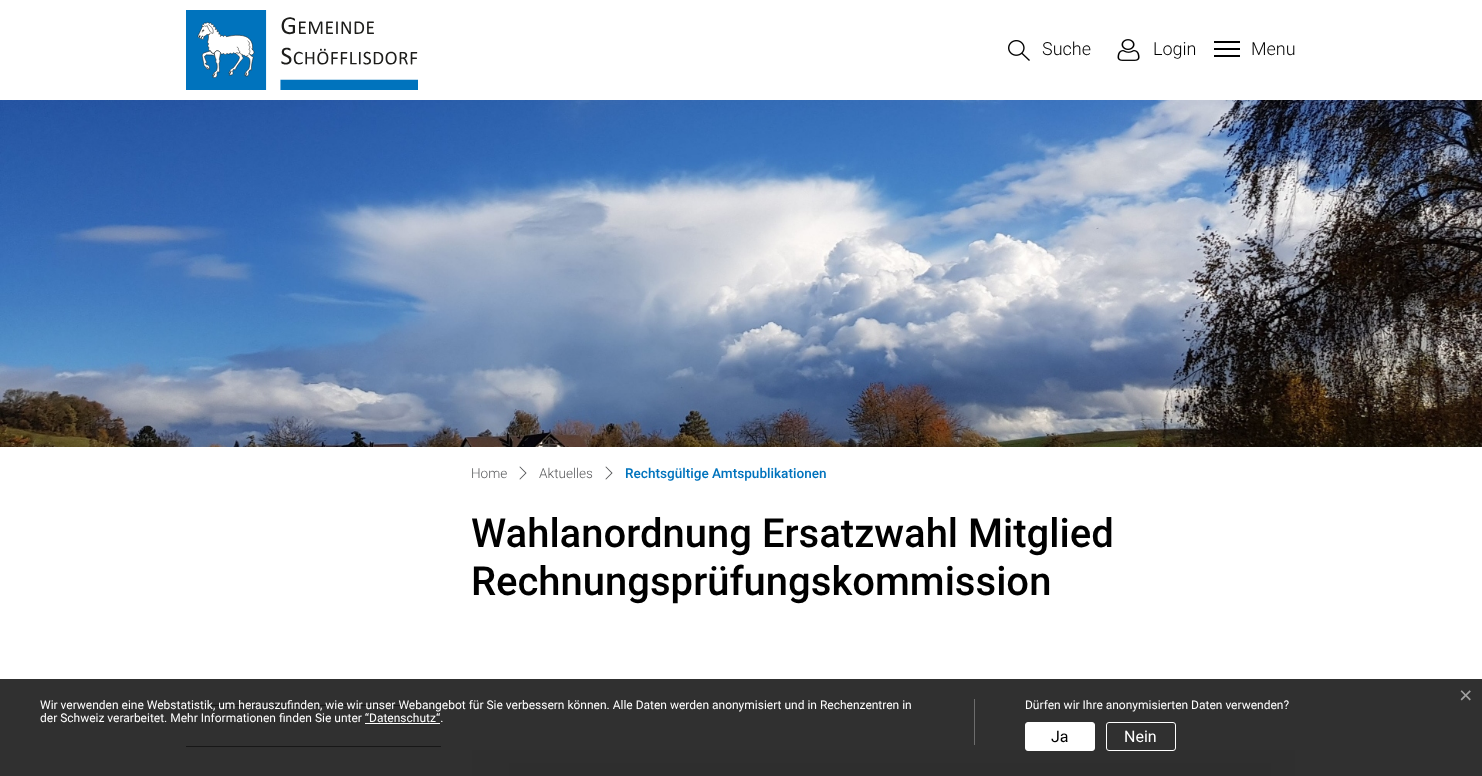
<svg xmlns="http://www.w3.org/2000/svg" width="1482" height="776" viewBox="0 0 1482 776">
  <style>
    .t1 { font: 300 18px Roboto; fill: #000; }
    .t2 { font: 300 13.6px Roboto; fill: #595a5c; }
    .t3 { font: 500 13.6px Roboto; fill: #0073bd; }
    .t4 { font: 500 40px Roboto; fill: #000; }
    .t5 { font: 23px Liberation Sans; fill: #a2a2a2; }
    .t6 { font: 12px Roboto; fill: #fff; }
    .t7 { font: 16px Roboto; fill: #000; }
    .t8 { font: 16px Roboto; fill: #fff; }
  </style>
  <rect width="100%" height="100%" fill="#fff"/>
  <image x="186" y="10" width="232" height="80" href="images/1.png"/>
  <image x="1008" y="40" width="22" height="21" href="images/2.png"/>
  <text x="1042" y="55" class="t1">Suche</text>
  <image x="1117" y="39" width="23" height="22" href="images/3.png"/>
  <text x="1153" y="55" class="t1">Login</text>
  <rect x="1214" y="41" width="26" height="2" fill="#000"/>
  <rect x="1214" y="48" width="26" height="2" fill="#000"/>
  <rect x="1214" y="55" width="26" height="2" fill="#000"/>
  <text x="1251" y="55" class="t1">Menu</text>
  <image x="0" y="100" width="1482" height="347" href="images/4.png"/>
  <text x="471" y="478" class="t2">Home</text>
  <image x="519" y="466" width="8" height="14" href="images/5.png"/>
  <text x="539" y="478" class="t2">Aktuelles</text>
  <image x="605" y="466" width="8" height="14" href="images/5.png"/>
  <text x="625" y="478" class="t3">Rechtsgültige Amtspublikationen</text>
  <text x="471" y="547" class="t4">Wahlanordnung Ersatzwahl Mitglied</text>
  <text x="471" y="595" class="t4">Rechnungsprüfungskommission</text>
  <rect x="186" y="705" width="255" height="1" fill="#000"/>
  <rect x="186" y="746" width="255" height="1" fill="#000"/>
  <rect x="472" y="750" width="823" height="26" fill="#f0f0f0"/>
  <rect x="0" y="679" width="1482" height="97" fill="#191919e6"/>
  <text x="1459" y="703" class="t5">×</text>
  <rect x="974" y="699" width="1" height="46" fill="#6d6d6d"/>
  <text x="40" y="709" class="t6">Wir verwenden eine Webstatistik, um herauszufinden, wie wir unser Webangebot für Sie verbessern können. Alle Daten werden anonymisiert und in Rechenzentren in</text>
  <text x="40" y="722" class="t6">der Schweiz verarbeitet. Mehr Informationen finden Sie unter “Datenschutz“.</text>
  <rect x="365" y="723" width="75" height="1" fill="#fff"/>
  <text x="1025" y="709" class="t6">Dürfen wir Ihre anonymisierten Daten verwenden?</text>
  <rect x="1025.5" y="722.5" width="69" height="28" rx="2.5" fill="#fff" stroke="#fff"/>
  <text x="1051" y="742" class="t7">Ja</text>
  <rect x="1106.5" y="722.5" width="69" height="28" rx="2.5" fill="none" stroke="#fff"/>
  <text x="1124" y="742" class="t8">Nein</text>
</svg>
